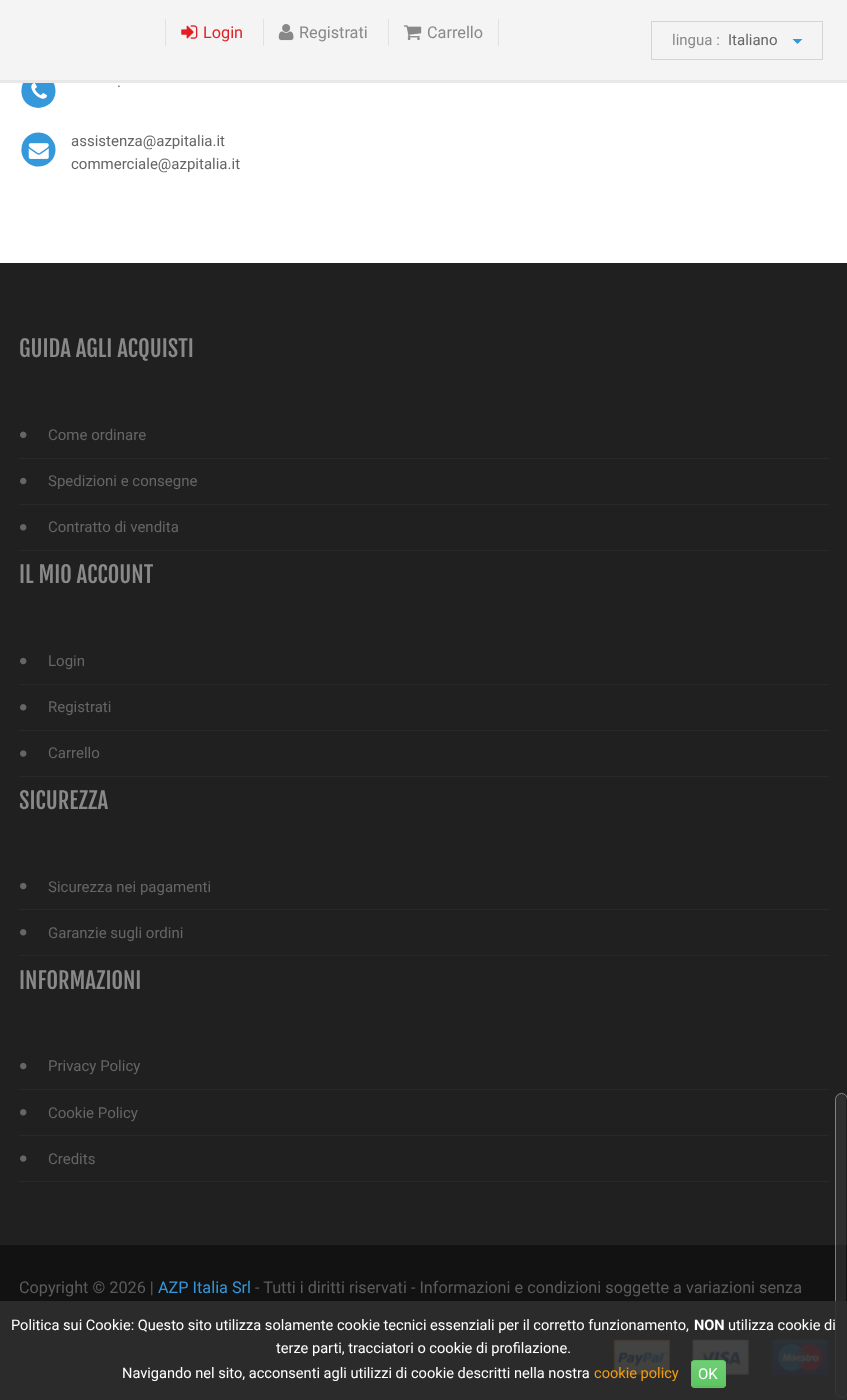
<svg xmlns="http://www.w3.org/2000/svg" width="847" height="1400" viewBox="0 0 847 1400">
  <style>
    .t1 { font: 16.25px Roboto; fill: #e31f26; }
    .t2 { font: 16.25px Roboto; fill: #898989; }
    .t3 { font: 15px Roboto; fill: #898989; }
    .t4 { font: 15px Roboto; fill: #666; }
    .t5 { font: 22.5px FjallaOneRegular; fill: #898989; }
    .t6 { font: 16.25px Roboto; fill: #5d5c5c; }
    .t7 { font: 16.25px Roboto; fill: #3498db; }
    .t8 { font: 14.6px Roboto; fill: #fff; }
    .t9 { font: bold 14.6px Roboto; fill: #fff; }
    .t10 { font: 14.6px Roboto; fill: #f39c12; }
    .t11 { font: 15px Roboto; fill: #fff; }
  </style>
  <defs>
    <clipPath id="clip1"><rect x="691" y="1360" width="35" height="28" rx="4"/></clipPath>
    <linearGradient id="g1" gradientUnits="userSpaceOnUse" x1="709" y1="1361" x2="709" y2="1386"><stop offset="0" stop-color="#71cd75"/><stop offset="1" stop-color="#5ec663"/></linearGradient>
  </defs>
  <rect width="100%" height="100%" fill="#fff"/>
  <path d="M53 82C55 85 55.5 88.5 55.5 92C54.5 108.5 32 114 23.5 99.5C22 96.5 21 93 21.5 89.5C22.5 73 45 67.5 53 82Z" fill="#3498db"/>
  <rect x="0" y="0" width="847" height="80" fill="#f4f4f4"/>
  <rect x="0" y="80" width="847" height="3" fill="#e8e8e8"/>
  <rect x="165" y="19" width="1" height="27" fill="#e2e2e2"/>
  <image x="181" y="25" width="17" height="14" href="images/1.png"/>
  <text x="203" y="38" class="t1">Login</text>
  <rect x="263" y="19" width="1" height="27" fill="#e2e2e2"/>
  <image x="278" y="24" width="16" height="17" href="images/2.png"/>
  <text x="299" y="38" class="t2">Registrati</text>
  <rect x="498" y="19" width="1" height="27" fill="#e2e2e2"/>
  <rect x="388" y="19" width="1" height="27" fill="#e2e2e2"/>
  <image x="403" y="25" width="19" height="16" href="images/3.png"/>
  <text x="427" y="38" class="t2">Carrello</text>
  <rect x="651.5" y="21.5" width="171" height="38" fill="none" stroke="#d4d4d4"/>
  <text x="672" y="45" class="t3">lingua :</text>
  <text x="728" y="45" class="t4">Italiano</text>
  <path d="M792.5 39H802.5L797.5 44Z" fill="#3498db"/>
  <image x="31" y="83" width="16" height="16" href="images/4.png"/>
  <text x="117" y="87" class="t4">.</text>
  <path d="M53 141C55 144 55.5 147 55.5 150.5C54.5 167.5 32 172.5 23.5 158C22 155 21 151.5 21.5 148.5C22.5 131.5 45 126.5 53 141Z" fill="#3498db"/>
  <image x="28" y="143" width="21" height="16" href="images/5.png"/>
  <text x="71" y="146" class="t4">assistenza@azpitalia.it</text>
  <text x="71" y="169" class="t4">commerciale@azpitalia.it</text>
  <rect x="0" y="263" width="847" height="982" fill="#202020"/>
  <text x="19" y="357" class="t5">GUIDA AGLI ACQUISTI</text>
  <rect x="19" y="458" width="810" height="1" fill="#292929"/>
  <image x="20" y="431" width="7" height="7" href="images/6.png"/>
  <text x="48" y="440" class="t4">Come ordinare</text>
  <rect x="19" y="504" width="810" height="1" fill="#292929"/>
  <image x="20" y="477" width="7" height="8" href="images/7.png"/>
  <text x="48" y="486" class="t4">Spedizioni e consegne</text>
  <rect x="19" y="550" width="810" height="1" fill="#292929"/>
  <image x="20" y="524" width="7" height="7" href="images/8.png"/>
  <text x="48" y="532" class="t4">Contratto di vendita</text>
  <text x="19" y="583" class="t5">IL MIO ACCOUNT</text>
  <rect x="19" y="684" width="810" height="1" fill="#292929"/>
  <image x="20" y="657" width="7" height="8" href="images/7.png"/>
  <text x="48" y="666" class="t4">Login</text>
  <rect x="19" y="730" width="810" height="1" fill="#292929"/>
  <image x="20" y="704" width="7" height="7" href="images/8.png"/>
  <text x="48" y="712" class="t4">Registrati</text>
  <rect x="19" y="776" width="810" height="1" fill="#292929"/>
  <image x="20" y="750" width="7" height="7" href="images/9.png"/>
  <text x="48" y="758" class="t4">Carrello</text>
  <text x="19" y="809" class="t5">SICUREZZA</text>
  <rect x="19" y="909" width="810" height="1" fill="#292929"/>
  <image x="20" y="882" width="7" height="8" href="images/7.png"/>
  <text x="48" y="892" class="t4">Sicurezza nei pagamenti</text>
  <rect x="19" y="955" width="810" height="1" fill="#292929"/>
  <image x="20" y="929" width="7" height="7" href="images/8.png"/>
  <text x="48" y="938" class="t4">Garanzie sugli ordini</text>
  <text x="19" y="989" class="t5">INFORMAZIONI</text>
  <rect x="19" y="1089" width="810" height="1" fill="#292929"/>
  <image x="20" y="1062" width="7" height="8" href="images/7.png"/>
  <text x="48" y="1071" class="t4">Privacy Policy</text>
  <rect x="19" y="1135" width="810" height="1" fill="#292929"/>
  <image x="20" y="1109" width="7" height="7" href="images/8.png"/>
  <text x="48" y="1118" class="t4">Cookie Policy</text>
  <rect x="19" y="1181" width="810" height="1" fill="#292929"/>
  <image x="20" y="1155" width="7" height="7" href="images/9.png"/>
  <text x="48" y="1164" class="t4">Credits</text>
  <rect x="0" y="1245" width="847" height="155" fill="#121212"/>
  <text x="19" y="1293" class="t6">Copyright © 2026 |</text>
  <text x="158" y="1293" class="t7">AZP Italia Srl</text>
  <text x="255" y="1293" class="t6">- Tutti i diritti riservati - Informazioni e condizioni soggette a variazioni senza</text>
  <image x="613" y="1339" width="57" height="36" href="images/10.png"/>
  <image x="692" y="1339" width="57" height="36" href="images/11.png"/>
  <image x="771" y="1339" width="58" height="36" href="images/12.png"/>
  <rect x="836" y="1094" width="10" height="302" rx="5" fill="#42424270"/>
  <rect x="835.5" y="1093.5" width="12" height="304" rx="6" fill="none" stroke="#ffffff70"/>
  <rect x="0" y="1301" width="847" height="99" fill="#2f2f2fe6"/>
  <text x="11" y="1330" class="t8">Politica sui Cookie: Questo sito utilizza solamente cookie tecnici essenziali per il corretto funzionamento,</text>
  <text x="694" y="1330" class="t9">NON</text>
  <text x="728" y="1330" class="t8">utilizza cookie di</text>
  <text x="276" y="1353" class="t8">terze parti, tracciatori o cookie di profilazione.</text>
  <text x="122" y="1378" class="t8">Navigando nel sito, acconsenti agli utilizzi di cookie descritti nella nostra</text>
  <text x="594" y="1378" class="t10">cookie policy</text>
  <rect x="691" y="1360" width="35" height="28" rx="4" fill="#5cb85c"/>
  <g clip-path="url(#clip1)">
    <rect x="691" y="1361" width="35" height="25" fill="url(#g1)"/>
  </g>
  <rect x="691.5" y="1360.5" width="34" height="27" rx="3.5" fill="none" stroke="#5ec663"/>
  <text x="698" y="1379" class="t11">OK</text>
</svg>
